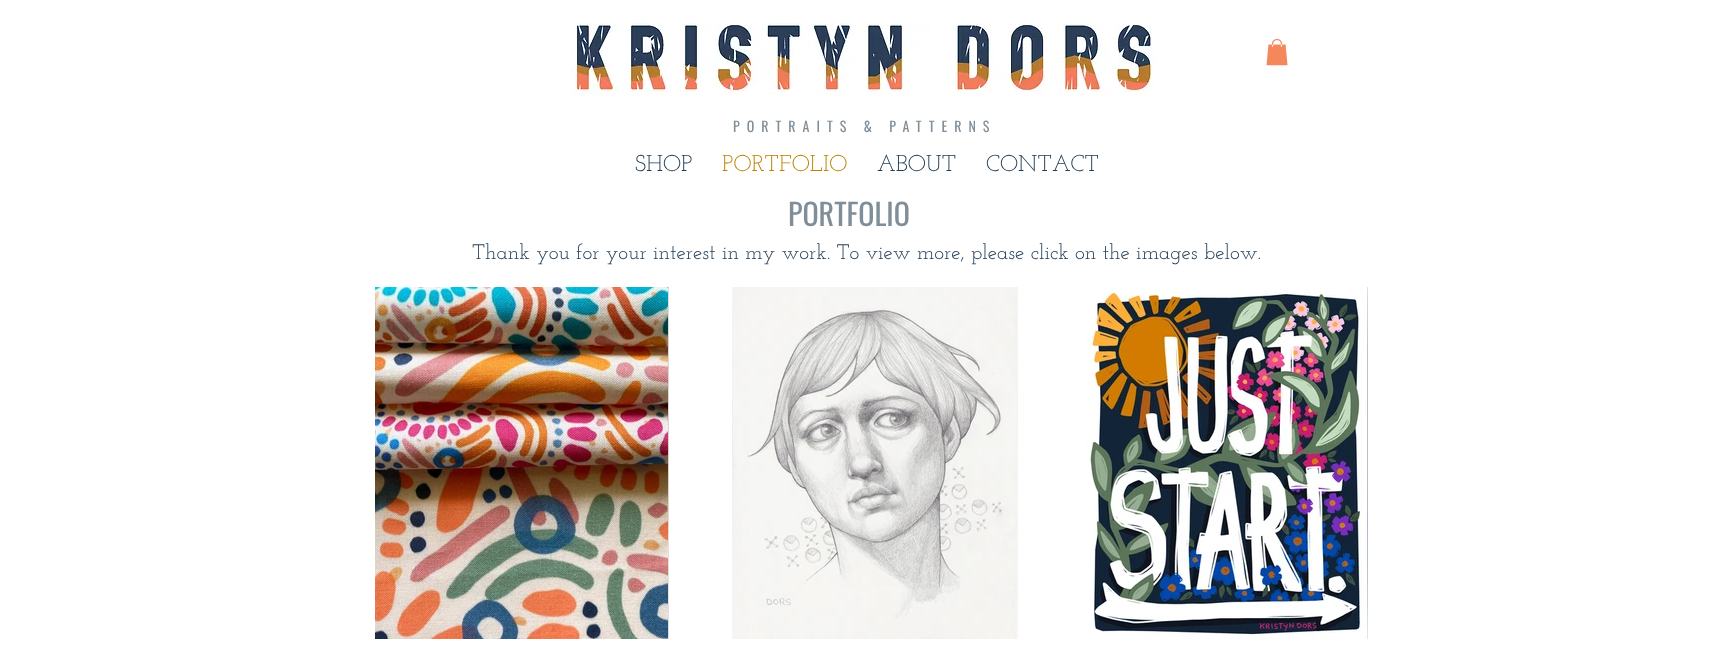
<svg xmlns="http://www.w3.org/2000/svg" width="1734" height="657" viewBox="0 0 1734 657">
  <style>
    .t1 { font: 14px Oswald; letter-spacing: 7px; fill: #808e99; }
    .t2 { font: 23px Josefin Slab; fill: #223e56; }
    .t3 { font: 23px Josefin Slab; fill: #bd8200; }
    .t4 { font: 30px Oswald; fill: #808e99; }
    .t5 { font: 21px Josefin Slab; fill: #223e56; }
  </style>
  <rect width="100%" height="100%" fill="#fff"/>
  <image x="571" y="23" width="584" height="72" href="images/1.png"/>
  <image x="1266" y="39" width="22" height="27" href="images/2.png"/>
  <text x="733" y="132" class="t1">PORTRAITS &amp; PATTERNS</text>
  <text x="635" y="171" class="t2">SHOP</text>
  <text x="722" y="171" class="t3">PORTFOLIO</text>
  <text x="877" y="171" class="t2">ABOUT</text>
  <text x="986" y="171" class="t2">CONTACT</text>
  <text x="788" y="226" class="t4">PORTFOLIO</text>
  <text x="472" y="259" class="t5">Thank you for your interest in my work. To view more, please click on the images below.</text>
  <image x="375" y="287" width="293" height="352" href="images/3.png"/>
  <image x="668" y="287" width="1" height="352" href="images/4.png"/>
  <image x="732" y="287" width="286" height="352" href="images/5.png"/>
  <image x="733" y="287" width="284" height="352" href="images/6.png"/>
  <image x="1086" y="287" width="281" height="352" href="images/7.png"/>
  <image x="1367" y="287" width="1" height="352" href="images/8.png"/>
</svg>
